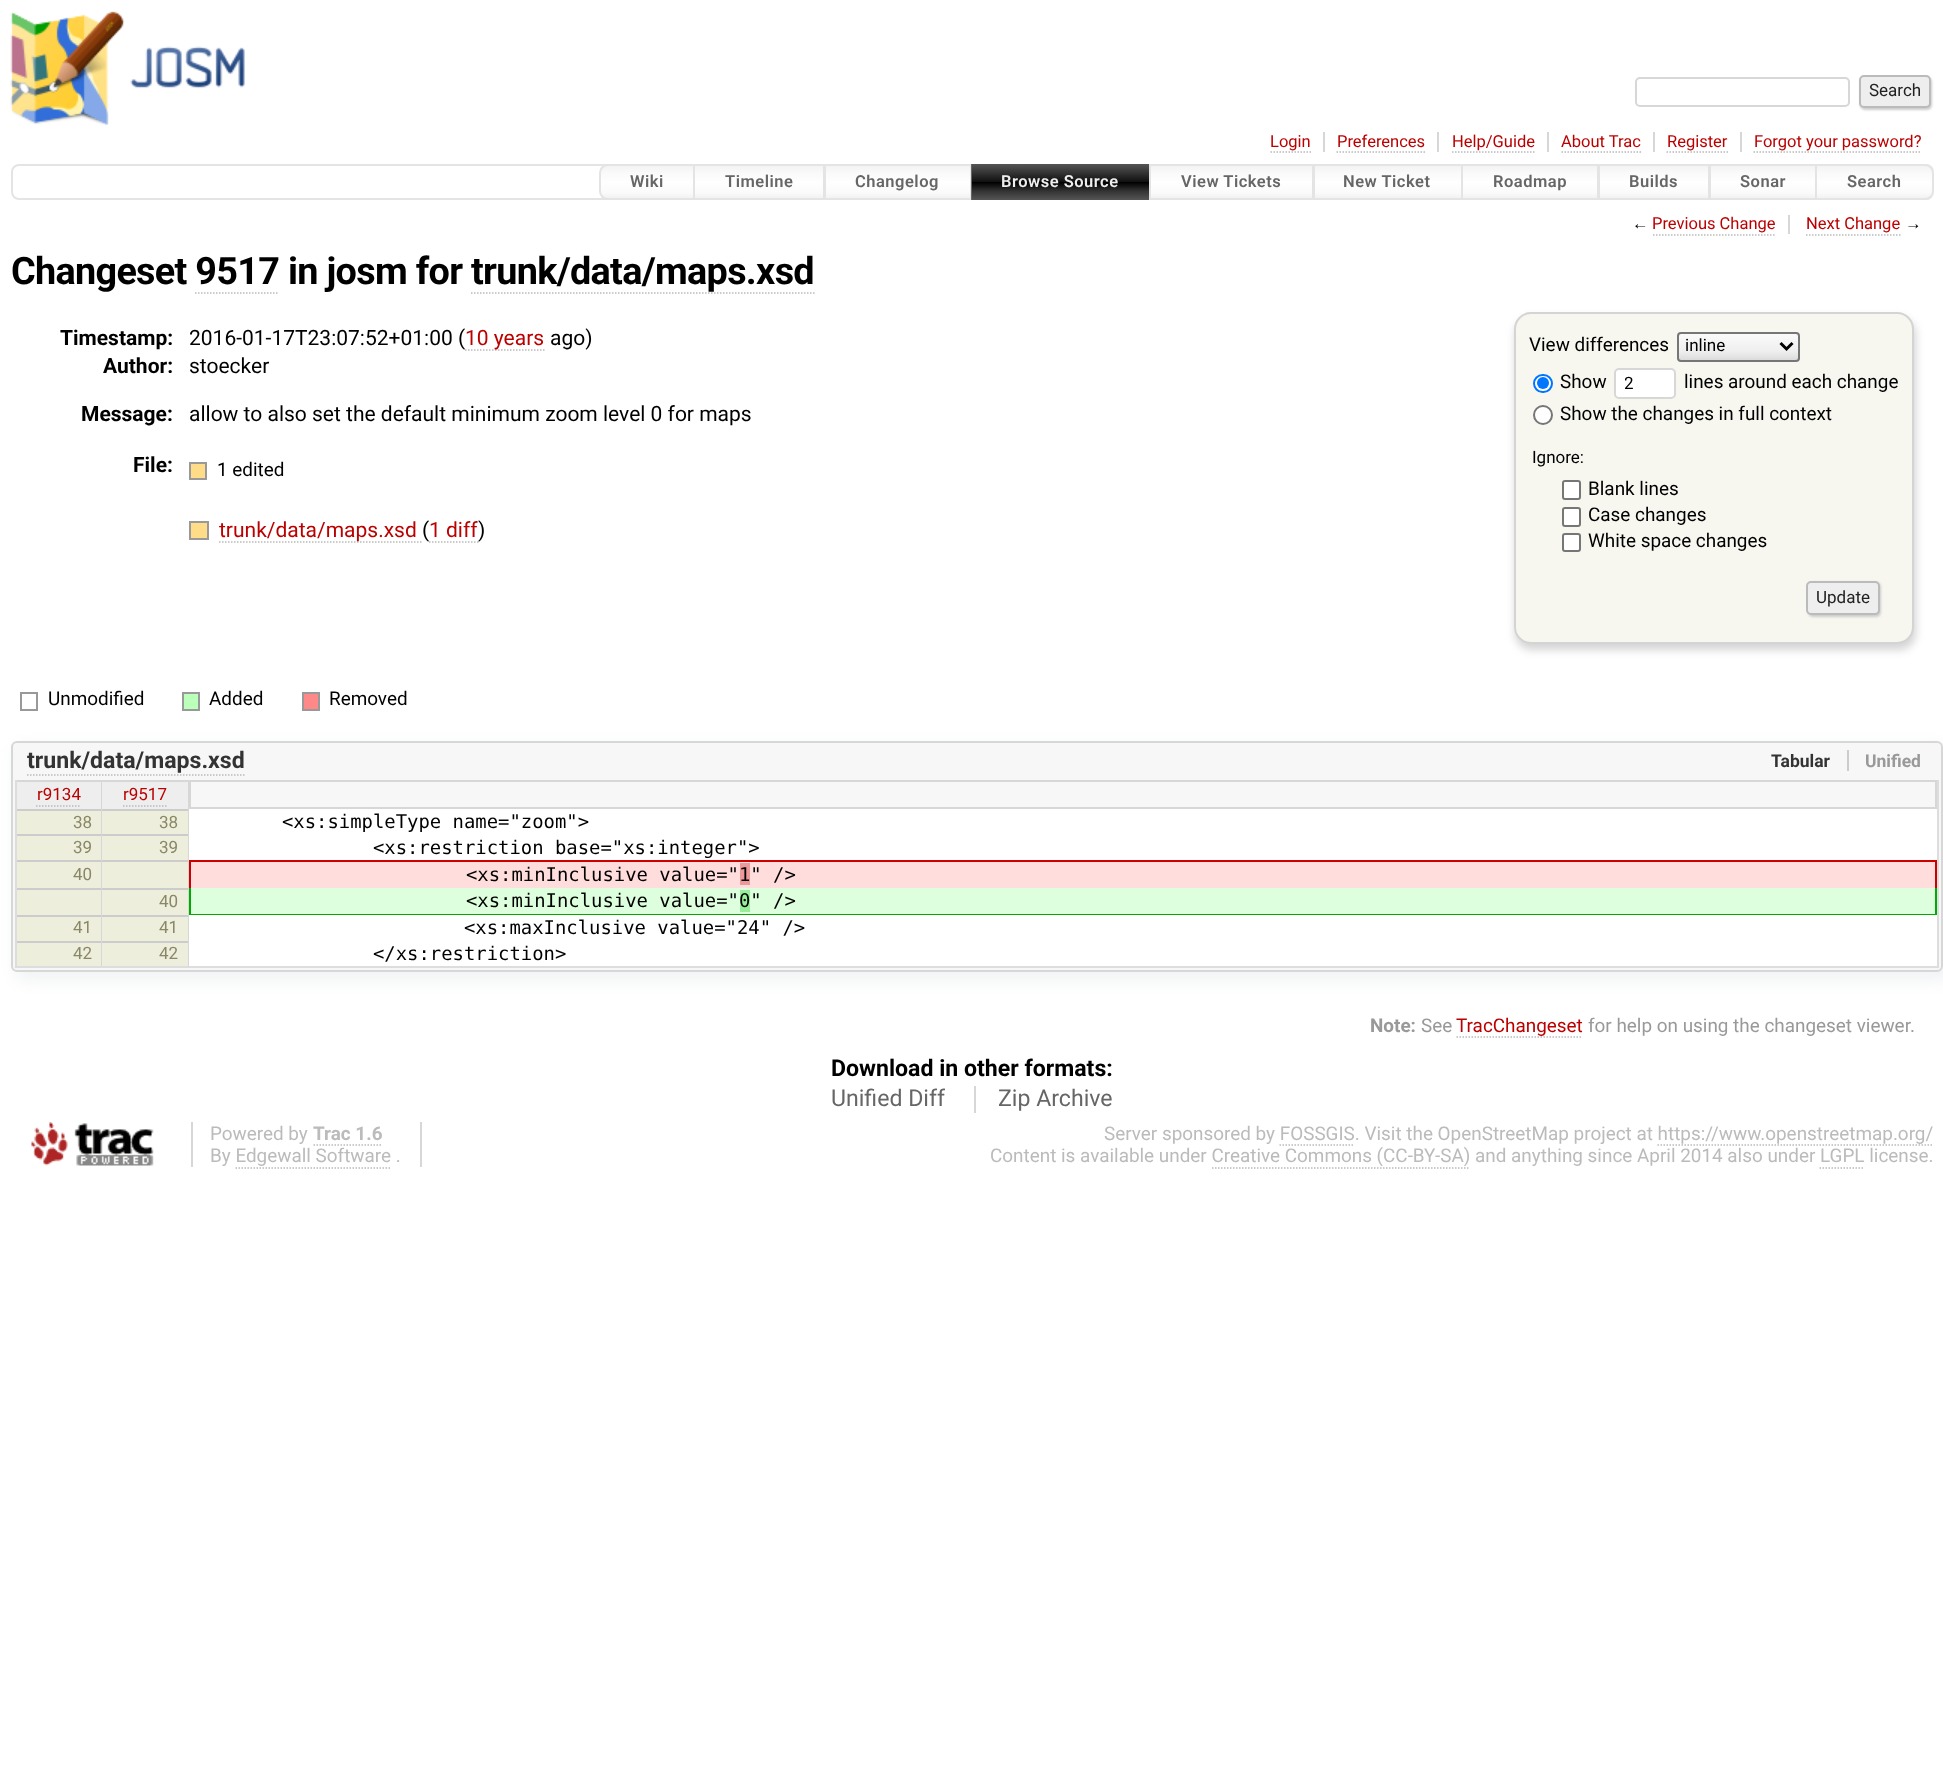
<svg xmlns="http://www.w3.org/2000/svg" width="1943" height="1775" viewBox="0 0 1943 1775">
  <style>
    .t1 { font: 17px Roboto; fill: #222; }
    .t2 { font: 16.5px Roboto; fill: #b00; }
    .t3 { font: 600 16.5px Roboto; letter-spacing: 0.5px; fill: #666; }
    .t4 { font: 600 16.5px Roboto; letter-spacing: 0.5px; fill: #eee; }
    .t5 { font: 16.5px Liberation Sans; fill: #000; }
    .t6 { font: bold 37.8px Roboto; letter-spacing: -0.7px; fill: #000; }
    .t7 { font: bold 21px Roboto; fill: #000; }
    .t8 { font: 21px Roboto; fill: #000; }
    .t9 { font: 21px Roboto; fill: #b00; }
    .t10 { font: 18.9px Roboto; fill: #000; }
    .t11 { font: 17px Roboto; fill: #000; }
    .t12 { font: bold 23.1px Roboto; fill: #333; }
    .t13 { font: bold 17.5px Roboto; fill: #333; }
    .t14 { font: bold 17.5px Roboto; fill: #999; }
    .t15 { font: 17px Roboto; fill: #b00; }
    .t16 { font: 17px Roboto; fill: #886; }
    .t17 { font: 18.9px DejaVu Sans Mono; fill: #000; }
    .t18 { font: bold 18.9px Roboto; fill: #999; }
    .t19 { font: 18.9px Roboto; fill: #999; }
    .t20 { font: 18.9px Roboto; fill: #b00; }
    .t21 { font: bold 23.1px Roboto; fill: #000; }
    .t22 { font: 23.1px Roboto; fill: #666; }
    .t23 { font: 18.9px Roboto; fill: #bbb; }
    .t24 { font: bold 18.9px Roboto; fill: #bbb; }
  </style>
  <defs>
    <clipPath id="clip1"><path d="M608 164H696V200H608C603 200 599 196 599 191V173C599 168 603 164 608 164Z"/></clipPath>
    <linearGradient id="g1" gradientUnits="userSpaceOnUse" x1="647" y1="165" x2="647" y2="198"><stop offset="0" stop-color="#f2f2f2"/><stop offset="0.25" stop-color="#fafafa"/><stop offset="0.49" stop-color="#fefefe"/><stop offset="0.51" stop-color="#fff"/><stop offset="0.85" stop-color="#fafafa"/><stop offset="1" stop-color="#f2f2f2"/></linearGradient>
    <linearGradient id="g2" gradientUnits="userSpaceOnUse" x1="759" y1="165" x2="759" y2="198"><stop offset="0" stop-color="#f2f2f2"/><stop offset="0.25" stop-color="#fafafa"/><stop offset="0.49" stop-color="#fefefe"/><stop offset="0.51" stop-color="#fff"/><stop offset="0.85" stop-color="#fafafa"/><stop offset="1" stop-color="#f2f2f2"/></linearGradient>
    <linearGradient id="g3" gradientUnits="userSpaceOnUse" x1="898" y1="165" x2="898" y2="198"><stop offset="0" stop-color="#f2f2f2"/><stop offset="0.25" stop-color="#fafafa"/><stop offset="0.49" stop-color="#fefefe"/><stop offset="0.51" stop-color="#fff"/><stop offset="0.85" stop-color="#fafafa"/><stop offset="1" stop-color="#f2f2f2"/></linearGradient>
    <linearGradient id="g4" gradientUnits="userSpaceOnUse" x1="1061" y1="164" x2="1061" y2="200"><stop offset="0" stop-color="#555"/><stop offset="0.25" stop-color="#333"/><stop offset="0.49" stop-color="#111"/><stop offset="0.51" stop-color="#000"/><stop offset="0.75" stop-color="#333"/><stop offset="1" stop-color="#555"/></linearGradient>
    <linearGradient id="g5" gradientUnits="userSpaceOnUse" x1="1232" y1="165" x2="1232" y2="198"><stop offset="0" stop-color="#f2f2f2"/><stop offset="0.25" stop-color="#fafafa"/><stop offset="0.49" stop-color="#fefefe"/><stop offset="0.51" stop-color="#fff"/><stop offset="0.85" stop-color="#fafafa"/><stop offset="1" stop-color="#f2f2f2"/></linearGradient>
    <linearGradient id="g6" gradientUnits="userSpaceOnUse" x1="1388" y1="165" x2="1388" y2="198"><stop offset="0" stop-color="#f2f2f2"/><stop offset="0.25" stop-color="#fafafa"/><stop offset="0.49" stop-color="#fefefe"/><stop offset="0.51" stop-color="#fff"/><stop offset="0.85" stop-color="#fafafa"/><stop offset="1" stop-color="#f2f2f2"/></linearGradient>
    <linearGradient id="g7" gradientUnits="userSpaceOnUse" x1="1530" y1="165" x2="1530" y2="198"><stop offset="0" stop-color="#f2f2f2"/><stop offset="0.25" stop-color="#fafafa"/><stop offset="0.49" stop-color="#fefefe"/><stop offset="0.51" stop-color="#fff"/><stop offset="0.85" stop-color="#fafafa"/><stop offset="1" stop-color="#f2f2f2"/></linearGradient>
    <linearGradient id="g8" gradientUnits="userSpaceOnUse" x1="1654" y1="165" x2="1654" y2="198"><stop offset="0" stop-color="#f2f2f2"/><stop offset="0.25" stop-color="#fafafa"/><stop offset="0.49" stop-color="#fefefe"/><stop offset="0.51" stop-color="#fff"/><stop offset="0.85" stop-color="#fafafa"/><stop offset="1" stop-color="#f2f2f2"/></linearGradient>
    <linearGradient id="g9" gradientUnits="userSpaceOnUse" x1="1763" y1="165" x2="1763" y2="198"><stop offset="0" stop-color="#f2f2f2"/><stop offset="0.25" stop-color="#fafafa"/><stop offset="0.49" stop-color="#fefefe"/><stop offset="0.51" stop-color="#fff"/><stop offset="0.85" stop-color="#fafafa"/><stop offset="1" stop-color="#f2f2f2"/></linearGradient>
    <clipPath id="clip2"><path d="M1815 164H1925C1930 164 1934 168 1934 173V191C1934 196 1930 200 1925 200H1815Z"/></clipPath>
    <linearGradient id="g10" gradientUnits="userSpaceOnUse" x1="1874" y1="165" x2="1874" y2="198"><stop offset="0" stop-color="#f2f2f2"/><stop offset="0.25" stop-color="#fafafa"/><stop offset="0.49" stop-color="#fefefe"/><stop offset="0.51" stop-color="#fff"/><stop offset="0.85" stop-color="#fafafa"/><stop offset="1" stop-color="#f2f2f2"/></linearGradient>
    <clipPath id="clip3"><rect x="1677" y="332" width="123" height="30" rx="4"/></clipPath>
    <linearGradient id="g11" gradientUnits="userSpaceOnUse" x1="1739" y1="360" x2="1739" y2="333"><stop offset="0" stop-color="#dbdbdb"/><stop offset="0.3" stop-color="#eee"/><stop offset="1" stop-color="#fbfbfb"/></linearGradient>
    <clipPath id="clip4"><rect x="1625" y="372" width="42" height="21"/></clipPath>
  </defs>
  <rect width="100%" height="100%" fill="#fff"/>
  <image x="10" y="11" width="235" height="114" href="images/1.png"/>
  <rect x="1636" y="78" width="213" height="28" rx="4" fill="none" stroke="#d7d7d7" stroke-width="2"/>
  <rect x="1860" y="77" width="72" height="33" rx="5" fill="#ccc" filter="blur(1px)"/>
  <rect x="1860" y="76" width="70" height="31" rx="4" fill="#eee" stroke="#bbb" stroke-width="2"/>
  <text x="1869" y="96" class="t1">Search</text>
  <rect x="1323" y="132" width="2" height="20" fill="#d7d7d7"/>
  <text x="1270" y="147" class="t2">Login</text>
  <path d="M1270.5 152H1311" fill="none" stroke="#bbb" stroke-width="1.5" stroke-dasharray="1.5 1.5"/>
  <rect x="1437" y="132" width="2" height="20" fill="#d7d7d7"/>
  <text x="1337" y="147" class="t2">Preferences</text>
  <path d="M1336.5 152H1425" fill="none" stroke="#bbb" stroke-width="1.5" stroke-dasharray="1.5 1.5"/>
  <rect x="1547" y="132" width="2" height="20" fill="#d7d7d7"/>
  <text x="1452" y="147" class="t2">Help/Guide</text>
  <path d="M1452 152H1534.5" fill="none" stroke="#bbb" stroke-width="1.5" stroke-dasharray="1.5 1.5"/>
  <rect x="1653" y="132" width="2" height="20" fill="#d7d7d7"/>
  <text x="1561" y="147" class="t2">About Trac</text>
  <path d="M1561.5 152H1641" fill="none" stroke="#bbb" stroke-width="1.5" stroke-dasharray="1.5 1.5"/>
  <rect x="1740" y="132" width="2" height="20" fill="#d7d7d7"/>
  <text x="1667" y="147" class="t2">Register</text>
  <path d="M1666.5 152H1728" fill="none" stroke="#bbb" stroke-width="1.5" stroke-dasharray="1.5 1.5"/>
  <text x="1754" y="147" class="t2">Forgot your password?</text>
  <path d="M1753.5 152H1921.5" fill="none" stroke="#bbb" stroke-width="1.5" stroke-dasharray="1.5 1.5"/>
  <rect x="12" y="165" width="1921" height="34" rx="7" fill="none" stroke="#e4e4e4" stroke-width="2"/>
  <g clip-path="url(#clip1)">
    <rect x="599" y="165" width="94" height="33" fill="url(#g1)"/>
  </g>
  <path d="M608 165H695V199H608C603.5 199 600 195.5 600 191V173C600 168.5 603.5 165 608 165Z" fill="none" stroke="#e4e4e4" stroke-width="2"/>
  <text x="630" y="187" class="t3">Wiki</text>
  <rect x="695" y="166" width="128" height="32" fill="url(#g2)"/>
  <rect x="694" y="165" width="130" height="34" fill="none" stroke="#e4e4e4" stroke-width="2"/>
  <text x="725" y="187" class="t3">Timeline</text>
  <rect x="826" y="166" width="144" height="32" fill="url(#g3)"/>
  <rect x="825" y="165" width="146" height="34" fill="none" stroke="#e4e4e4" stroke-width="2"/>
  <text x="855" y="187" class="t3">Changelog</text>
  <rect x="972" y="165" width="178" height="34" fill="none" stroke="#666" stroke-width="2"/>
  <rect x="972" y="164" width="177" height="36" fill="url(#g4)"/>
  <text x="1001" y="187" class="t4">Browse Source</text>
  <rect x="1151" y="166" width="161" height="32" fill="url(#g5)"/>
  <rect x="1150" y="165" width="163" height="34" fill="none" stroke="#e4e4e4" stroke-width="2"/>
  <text x="1181" y="187" class="t3">View Tickets</text>
  <rect x="1315" y="166" width="146" height="32" fill="url(#g6)"/>
  <rect x="1314" y="165" width="148" height="34" fill="none" stroke="#e4e4e4" stroke-width="2"/>
  <text x="1343" y="187" class="t3">New Ticket</text>
  <rect x="1463" y="166" width="134" height="32" fill="url(#g7)"/>
  <rect x="1462" y="165" width="136" height="34" fill="none" stroke="#e4e4e4" stroke-width="2"/>
  <text x="1493" y="187" class="t3">Roadmap</text>
  <rect x="1600" y="166" width="108" height="32" fill="url(#g8)"/>
  <rect x="1599" y="165" width="110" height="34" fill="none" stroke="#e4e4e4" stroke-width="2"/>
  <text x="1629" y="187" class="t3">Builds</text>
  <rect x="1711" y="166" width="104" height="32" fill="url(#g9)"/>
  <rect x="1710" y="165" width="107" height="34" fill="none" stroke="#e4e4e4" stroke-width="2"/>
  <text x="1740" y="187" class="t3">Sonar</text>
  <g clip-path="url(#clip2)">
    <rect x="1817" y="165" width="117" height="33" fill="url(#g10)"/>
  </g>
  <path d="M1816 165H1925C1929.5 165 1933 168.5 1933 173V191C1933 195.5 1929.5 199 1925 199H1816Z" fill="none" stroke="#e4e4e4" stroke-width="2"/>
  <text x="1847" y="187" class="t3">Search</text>
  <rect x="1788" y="215" width="2" height="19" fill="#d7d7d7"/>
  <text x="1632" y="229" class="t5">←</text>
  <text x="1652" y="229" class="t2">Previous Change</text>
  <path d="M1653 235H1776" fill="none" stroke="#bbb" stroke-width="1.5" stroke-dasharray="1.5 1.5"/>
  <text x="1806" y="229" class="t2">Next Change</text>
  <path d="M1806 235H1900.5" fill="none" stroke="#bbb" stroke-width="1.5" stroke-dasharray="1.5 1.5"/>
  <text x="1905" y="229" class="t5">→</text>
  <text x="11" y="284" class="t6">Changeset 9517 in josm for trunk/data/maps.xsd</text>
  <path d="M195 293H279" fill="none" stroke="#bbb" stroke-width="1.5" stroke-dasharray="1.5 1.5"/>
  <path d="M471 293H814.5" fill="none" stroke="#bbb" stroke-width="1.5" stroke-dasharray="1.5 1.5"/>
  <text x="60" y="345" class="t7">Timestamp:</text>
  <text x="189" y="345" class="t8">2016-01-17T23:07:52+01:00 (</text>
  <path d="M465 350H544.5" fill="none" stroke="#bbb" stroke-width="1.5" stroke-dasharray="1.5 1.5"/>
  <text x="465" y="345" class="t9">10 years</text>
  <text x="550" y="345" class="t8">ago)</text>
  <text x="103" y="373" class="t7">Author:</text>
  <text x="189" y="373" class="t8">stoecker</text>
  <text x="81" y="421" class="t7">Message:</text>
  <text x="189" y="421" class="t8">allow to also set the default minimum zoom level 0 for maps</text>
  <text x="133" y="472" class="t7">File:</text>
  <rect x="190" y="463" width="16" height="16" fill="#fd8" stroke="#999" stroke-width="2"/>
  <text x="217" y="476" class="t10">1 edited</text>
  <rect x="190" y="522" width="18" height="17" fill="#fd8" stroke="#999" stroke-width="2"/>
  <path d="M219 542H423" fill="none" stroke="#bbb" stroke-width="1.5" stroke-dasharray="1.5 1.5"/>
  <text x="219" y="537" class="t9">trunk/data/maps.xsd</text>
  <text x="422" y="537" class="t8">(</text>
  <text x="429" y="537" class="t9">1 diff</text>
  <path d="M429 542H478.5" fill="none" stroke="#bbb" stroke-width="1.5" stroke-dasharray="1.5 1.5"/>
  <text x="478" y="537" class="t8">)</text>
  <rect x="1515" y="318" width="401" height="332" rx="17" fill="#d4d4d4" filter="blur(4.5px)"/>
  <rect x="1515" y="313" width="398" height="330" rx="16" fill="#f7f7f0" stroke="#d4d4d4" stroke-width="2"/>
  <text x="1529" y="351" class="t10">View differences</text>
  <g clip-path="url(#clip3)">
    <rect x="1677" y="333" width="123" height="27" fill="url(#g11)"/>
  </g>
  <rect x="1678" y="333" width="121" height="28" rx="3" fill="none" stroke="#767676" stroke-width="2"/>
  <path d="M1780.5 343L1786.5 349L1792.5 343" fill="none" stroke="#000" stroke-width="3"/>
  <text x="1685" y="351" class="t11">inline</text>
  <rect x="1534" y="375" width="18" height="17" rx="8.5" fill="#fff" stroke="#0075ff" stroke-width="2"/>
  <circle cx="1543" cy="383" r="6" fill="#0075ff"/>
  <text x="1560" y="388" class="t10">Show</text>
  <rect x="1615" y="369" width="60" height="29" rx="4" fill="#fff" stroke="#d7d7d7" stroke-width="2"/>
  <g clip-path="url(#clip4)">
    <text x="1624" y="389" class="t11">2</text>
  </g>
  <text x="1684" y="388" class="t10">lines around each change</text>
  <circle cx="1543" cy="415" r="9" fill="#fff" stroke="#767676" stroke-width="2"/>
  <text x="1560" y="420" class="t10">Show the changes in full context</text>
  <text x="1532" y="463" class="t11">Ignore:</text>
  <rect x="1563" y="481" width="17" height="18" rx="2" fill="#fff" stroke="#767676" stroke-width="2"/>
  <text x="1588" y="495" class="t10">Blank lines</text>
  <rect x="1563" y="508" width="17" height="18" rx="2" fill="#fff" stroke="#767676" stroke-width="2"/>
  <text x="1588" y="521" class="t10">Case changes</text>
  <rect x="1563" y="534" width="17" height="17" rx="2" fill="#fff" stroke="#767676" stroke-width="2"/>
  <text x="1588" y="547" class="t10">White space changes</text>
  <rect x="1808" y="582" width="73" height="35" rx="5" fill="#ccc" filter="blur(1px)"/>
  <rect x="1807" y="582" width="72" height="32" rx="4" fill="#eee" stroke="#bbb" stroke-width="2"/>
  <text x="1816" y="603" class="t1">Update</text>
  <rect x="21" y="693" width="16" height="17" fill="none" stroke="#999" stroke-width="2"/>
  <text x="48" y="705" class="t10">Unmodified</text>
  <rect x="183" y="693" width="16" height="17" fill="#bfb" stroke="#999" stroke-width="2"/>
  <text x="209" y="705" class="t10">Added</text>
  <rect x="303" y="693" width="16" height="17" fill="#f88" stroke="#999" stroke-width="2"/>
  <text x="329" y="705" class="t10">Removed</text>
  <rect x="15" y="746" width="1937" height="235" rx="9" fill="#d2d7dc4d" filter="blur(8px)"/>
  <rect x="12" y="742" width="1930" height="229" rx="5" fill="#f7f7f7" stroke="#d7d7d7" stroke-width="2"/>
  <text x="27" y="768" class="t12">trunk/data/maps.xsd</text>
  <path d="M27 775H244.5" fill="none" stroke="#bbb" stroke-width="1.5" stroke-dasharray="1.5 1.5"/>
  <text x="1771" y="767" class="t13">Tabular</text>
  <text x="1865" y="767" class="t14">Unified</text>
  <rect x="1847" y="750" width="2" height="21" fill="#ccc"/>
  <rect x="1937" y="780" width="2" height="188" fill="#ddd"/>
  <rect x="15" y="966" width="1923" height="2" fill="#ddd"/>
  <rect x="15" y="780" width="2" height="188" fill="#ddd"/>
  <rect x="17" y="782" width="84" height="27" fill="#eee"/>
  <rect x="17" y="780" width="172" height="2" fill="#d7d7d7"/>
  <rect x="101" y="780" width="1" height="29" fill="#d7d7d7"/>
  <text x="37" y="800" class="t15">r9134</text>
  <path d="M36 806H81" fill="none" stroke="#bbb" stroke-width="1.5" stroke-dasharray="1.5 1.5"/>
  <rect x="102" y="782" width="86" height="27" fill="#eee"/>
  <rect x="188" y="780" width="1" height="29" fill="#d7d7d7"/>
  <text x="123" y="800" class="t15">r9517</text>
  <path d="M123 806H166.5" fill="none" stroke="#bbb" stroke-width="1.5" stroke-dasharray="1.5 1.5"/>
  <rect x="190" y="781" width="1746" height="27" fill="none" stroke="#d7d7d7" stroke-width="2"/>
  <rect x="17" y="811" width="84" height="23" fill="#eed"/>
  <rect x="17" y="809" width="172" height="2" fill="#ccc"/>
  <rect x="101" y="809" width="1" height="25" fill="#d7d7d7"/>
  <text x="73" y="828" class="t16">38</text>
  <rect x="102" y="811" width="86" height="23" fill="#eed"/>
  <rect x="188" y="809" width="1" height="25" fill="#d7d7d7"/>
  <text x="159" y="828" class="t16">38</text>
  <rect x="189" y="809" width="1748" height="51" fill="#fff"/>
  <text x="282" y="828" class="t17">&lt;xs:simpleType name="zoom"&gt;</text>
  <rect x="17" y="836" width="84" height="24" fill="#eed"/>
  <rect x="17" y="834" width="172" height="2" fill="#ccc"/>
  <rect x="101" y="834" width="1" height="26" fill="#d7d7d7"/>
  <text x="73" y="853" class="t16">39</text>
  <rect x="102" y="836" width="86" height="24" fill="#eed"/>
  <rect x="188" y="834" width="1" height="26" fill="#d7d7d7"/>
  <text x="159" y="853" class="t16">39</text>
  <text x="373" y="854" class="t17">&lt;xs:restriction base="xs:integer"&gt;</text>
  <rect x="17" y="862" width="84" height="26" fill="#eed"/>
  <rect x="17" y="860" width="172" height="2" fill="#ccc"/>
  <rect x="101" y="860" width="1" height="28" fill="#d7d7d7"/>
  <text x="73" y="880" class="t16">40</text>
  <rect x="102" y="862" width="86" height="26" fill="#eed"/>
  <rect x="188" y="860" width="1" height="28" fill="#d7d7d7"/>
  <rect x="191" y="862" width="1744" height="26" fill="#fdd"/>
  <rect x="189" y="860" width="1748" height="2" fill="#c00"/>
  <rect x="1935" y="860" width="2" height="28" fill="#c00"/>
  <rect x="189" y="860" width="2" height="28" fill="#c00"/>
  <text x="466" y="881" class="t17">&lt;xs:minInclusive value="</text>
  <rect x="740" y="863" width="10" height="22" fill="#e99"/>
  <text x="739" y="881" class="t17">1" /&gt;</text>
  <rect x="17" y="890" width="84" height="25" fill="#eed"/>
  <rect x="17" y="888" width="172" height="2" fill="#ccc"/>
  <rect x="101" y="888" width="1" height="27" fill="#d7d7d7"/>
  <rect x="191" y="888" width="1744" height="26" fill="#dfd"/>
  <rect x="1935" y="888" width="2" height="27" fill="#0a0"/>
  <rect x="189" y="914" width="1748" height="1" fill="#0a0"/>
  <rect x="189" y="888" width="2" height="27" fill="#0a0"/>
  <text x="466" y="907" class="t17">&lt;xs:minInclusive value="</text>
  <rect x="740" y="890" width="10" height="22" fill="#9e9"/>
  <text x="739" y="907" class="t17">0" /&gt;</text>
  <rect x="102" y="890" width="86" height="25" fill="#eed"/>
  <rect x="188" y="888" width="1" height="27" fill="#d7d7d7"/>
  <text x="159" y="907" class="t16">40</text>
  <rect x="17" y="917" width="84" height="24" fill="#eed"/>
  <rect x="17" y="915" width="172" height="2" fill="#ccc"/>
  <rect x="101" y="915" width="1" height="26" fill="#d7d7d7"/>
  <text x="73" y="933" class="t16">41</text>
  <rect x="102" y="917" width="86" height="24" fill="#eed"/>
  <rect x="188" y="915" width="1" height="26" fill="#d7d7d7"/>
  <text x="159" y="933" class="t16">41</text>
  <rect x="189" y="915" width="1748" height="51" fill="#fff"/>
  <text x="464" y="934" class="t17">&lt;xs:maxInclusive value="24" /&gt;</text>
  <rect x="17" y="943" width="84" height="23" fill="#eed"/>
  <rect x="17" y="941" width="172" height="2" fill="#ccc"/>
  <rect x="101" y="941" width="1" height="25" fill="#d7d7d7"/>
  <text x="73" y="959" class="t16">42</text>
  <rect x="102" y="943" width="86" height="23" fill="#eed"/>
  <rect x="188" y="941" width="1" height="25" fill="#d7d7d7"/>
  <text x="159" y="959" class="t16">42</text>
  <text x="373" y="960" class="t17">&lt;/xs:restriction&gt;</text>
  <text x="1370" y="1032" class="t18">Note:</text>
  <text x="1421" y="1032" class="t19">See</text>
  <text x="1456" y="1032" class="t20">TracChangeset</text>
  <path d="M1456.5 1037H1582.5" fill="none" stroke="#bbb" stroke-width="1.5" stroke-dasharray="1.5 1.5"/>
  <text x="1588" y="1032" class="t19">for help on using the changeset viewer.</text>
  <text x="831" y="1076" class="t21">Download in other formats:</text>
  <text x="831" y="1106" class="t22">Unified Diff</text>
  <rect x="974" y="1086" width="2" height="27" fill="#d7d7d7"/>
  <text x="998" y="1106" class="t22">Zip Archive</text>
  <image x="31" y="1122" width="123" height="44" href="images/2.png"/>
  <rect x="420" y="1122" width="2" height="45" fill="#d7d7d7"/>
  <rect x="191" y="1122" width="2" height="45" fill="#d7d7d7"/>
  <text x="210" y="1140" class="t23">Powered by</text>
  <text x="313" y="1140" class="t24">Trac 1.6</text>
  <path d="M313.5 1145H382.5" fill="none" stroke="#bbb" stroke-width="1.5" stroke-dasharray="1.5 1.5"/>
  <text x="210" y="1162" class="t23">By Edgewall Software .</text>
  <path d="M235.5 1168H391.5" fill="none" stroke="#bbb" stroke-width="1.5" stroke-dasharray="1.5 1.5"/>
  <text x="1104" y="1140" class="t23">Server sponsored by FOSSGIS. Visit the OpenStreetMap project at https://www.openstreetmap.org/</text>
  <path d="M1279.5 1145H1354.5" fill="none" stroke="#bbb" stroke-width="1.5" stroke-dasharray="1.5 1.5"/>
  <path d="M1657.5 1145H1933.5" fill="none" stroke="#bbb" stroke-width="1.5" stroke-dasharray="1.5 1.5"/>
  <text x="990" y="1162" class="t23">Content is available under Creative Commons (CC-BY-SA) and anything since April 2014 also under LGPL license.</text>
  <path d="M1212 1168H1470" fill="none" stroke="#bbb" stroke-width="1.5" stroke-dasharray="1.5 1.5"/>
  <path d="M1819.5 1168H1864.5" fill="none" stroke="#bbb" stroke-width="1.5" stroke-dasharray="1.5 1.5"/>
</svg>
